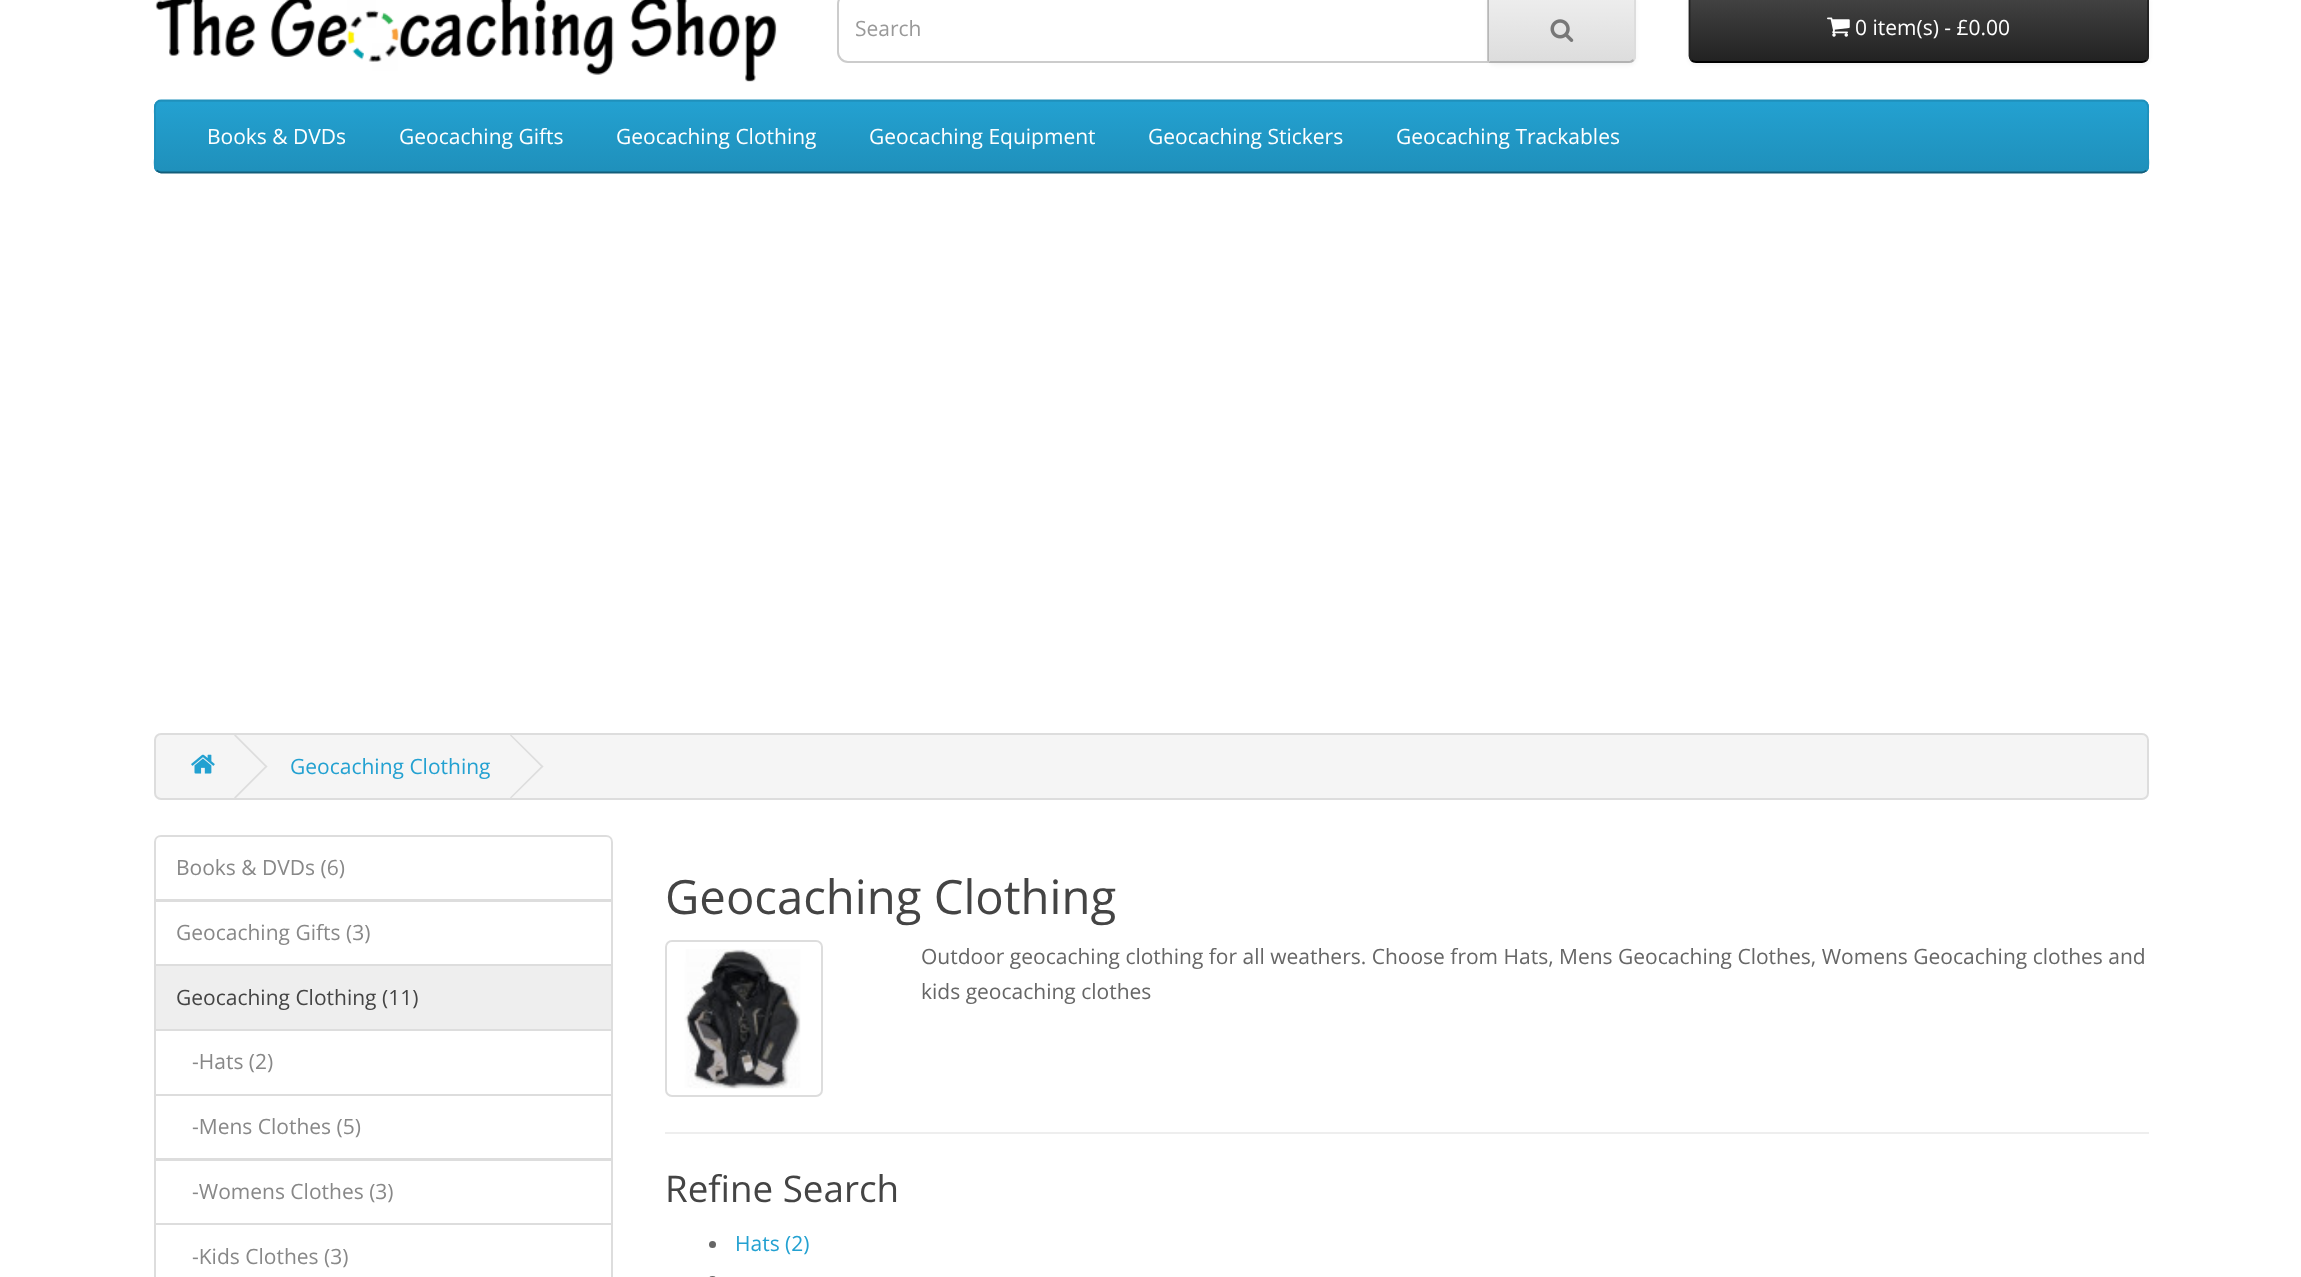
<svg xmlns="http://www.w3.org/2000/svg" width="2301" height="1277" viewBox="0 0 2301 1277">
  <style>
    .t1 { font: 21px Open Sans; fill: #999; }
    .t2 { font: 21px Open Sans; fill: #fff; }
    .t3 { font: 21px Open Sans; fill: #23a1d1; }
    .t4 { font: 21px Open Sans; fill: #888; }
    .t5 { font: 21px Open Sans; fill: #444; }
    .t6 { font: 47.25px Open Sans; fill: #444; }
    .t7 { font: 21px Open Sans; fill: #666; }
    .t8 { font: 36.75px Open Sans; fill: #444; }
  </style>
  <defs>
    <clipPath id="clip1"><path d="M1488-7H1629C1633-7 1636-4 1636 0V56C1636 60 1633 63 1629 63H1488Z"/></clipPath>
    <linearGradient id="g1" gradientUnits="userSpaceOnUse" x1="1562" y1="-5.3" x2="1562" y2="61"><stop offset="0" stop-color="#eee"/><stop offset="1" stop-color="#ddd"/></linearGradient>
    <clipPath id="clip2"><rect x="1689" y="-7" width="460" height="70" rx="7"/></clipPath>
    <linearGradient id="g2" gradientUnits="userSpaceOnUse" x1="1919" y1="-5.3" x2="1919" y2="61"><stop offset="0" stop-color="#444"/><stop offset="1" stop-color="#222"/></linearGradient>
    <clipPath id="clip3"><rect x="154" y="100" width="1995" height="73" rx="7"/></clipPath>
    <linearGradient id="g3" gradientUnits="userSpaceOnUse" x1="1152" y1="101" x2="1152" y2="172"><stop offset="0" stop-color="#23a1d1"/><stop offset="1" stop-color="#1f90bb"/></linearGradient>
  </defs>
  <rect width="100%" height="100%" fill="#fff"/>
  <image x="155" y="0" width="622" height="82" href="images/1.png"/>
  <path d="M848-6H1488V62H848C842.5 62 838 57.5 838 52V4C838-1.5 842.5-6 848-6Z" fill="none" stroke="#ccc" stroke-width="2"/>
  <text x="855" y="36" class="t1">Search</text>
  <rect x="1488" y="-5" width="148" height="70" rx="7" fill="#0000000d" filter="blur(2px)"/>
  <path d="M1488-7H1629C1633-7 1636-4 1636 0V56C1636 60 1633 63 1629 63H1488Z" fill="#e7e7e7"/>
  <g clip-path="url(#clip1)">
    <rect x="1489" y="0" width="147" height="61" fill="url(#g1)"/>
  </g>
  <path d="M1489-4H1606C1638-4 1634-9 1634 21V59C1635 58 1635 57 1635 56V0C1635-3 1633-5 1630-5H1489Z" fill="#ffffff33"/>
  <path d="M1634-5C1635-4 1636-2 1636 0V56C1636 58 1635 60 1634 61L1633 59C1634 59 1634 57 1634 56V0C1634-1 1634-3 1633-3Z" fill="#ddd"/>
  <path d="M1488 63H1629C1631 63 1633 62 1634 61L1633 59L1630 61H1490Z" fill="#b3b3b3"/>
  <path d="M1489-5H1490L1488-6V62L1490 61H1489Z" fill="#b7b7b7"/>
  <image x="1550" y="19" width="24" height="23" href="images/2.png"/>
  <rect x="1689" y="-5" width="460" height="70" rx="7" fill="#0000000d" filter="blur(2px)"/>
  <g clip-path="url(#clip2)">
    <rect x="1689" y="0" width="460" height="61" fill="url(#g2)"/>
  </g>
  <path d="M1696-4H2142C2145-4 2147-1 2147 2V0C2147-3 2145-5 2142-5H1696C1694-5 1692-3 1691-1C1692-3 1694-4 1696-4Z" fill="#676767"/>
  <path d="M2146.5 60.5C2145 61.5 2143.5 62 2142 62H1696C1694 62 1692.5 61.5 1691.5 60.5" fill="none" stroke="#000" stroke-width="1.8"/>
  <path d="M1691.5 60.5C1690.5 59 1689.5 57.5 1689.5 56V0C1689.5-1.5 1690.5-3 1691.5-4.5C1692.5-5.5 1694-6 1696-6H2142C2143.5-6 2145-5.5 2146.5-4.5C2147.5-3 2148-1.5 2148 0V56C2148 57.5 2147.5 59 2146.5 60.5" fill="none" stroke="#222" stroke-width="1.8"/>
  <image x="1827" y="17" width="23" height="20" href="images/3.png"/>
  <text x="1855" y="35" class="t2">0 item(s) - £0.00</text>
  <rect x="154" y="100" width="1995" height="73" rx="7" fill="#229ac8"/>
  <g clip-path="url(#clip3)">
    <rect x="154" y="102" width="1995" height="70" fill="url(#g3)"/>
  </g>
  <path d="M2146.5 170.5C2145 171.5 2143.5 172.5 2142 172.5H161C159.5 172.5 158 171.5 156.5 170.5" fill="none" stroke="#145e7a" stroke-width="1.8"/>
  <path d="M156.5 170.5C153.5 167 155 159.5 155 156.5V116.5C155 112 153 100.5 161 100.5H2142C2150 100.5 2148 112 2148 116.5V156.5C2148 159.5 2149.5 167 2146.5 170.5" fill="none" stroke="#1f90bb" stroke-width="1.8"/>
  <text x="207" y="144" class="t2">Books &amp; DVDs</text>
  <text x="399" y="144" class="t2">Geocaching Gifts</text>
  <text x="616" y="144" class="t2">Geocaching Clothing</text>
  <text x="869" y="144" class="t2">Geocaching Equipment</text>
  <text x="1148" y="144" class="t2">Geocaching Stickers</text>
  <text x="1396" y="144" class="t2">Geocaching Trackables</text>
  <rect x="155" y="734" width="1993" height="65" rx="6" fill="#f5f5f5" stroke="#ddd" stroke-width="2"/>
  <image x="191" y="754" width="24" height="20" href="images/4.png"/>
  <path d="M234 735.5L235.5 734.5L267.5 766.5L266 767.5Z" fill="#ddd"/>
  <path d="M234 797.5L266 765.5L267.5 766.5L235.5 798.5Z" fill="#ddd"/>
  <text x="290" y="774" class="t3">Geocaching Clothing</text>
  <path d="M510 735.5L511 734.5L543.5 766.5L542 767.5Z" fill="#ddd"/>
  <path d="M510 797.5L542 765.5L543.5 766.5L511 798.5Z" fill="#ddd"/>
  <path d="M161 836H606C609.5 836 612 838.5 612 842V900H155V842C155 838.5 157.5 836 161 836Z" fill="none" stroke="#ddd" stroke-width="2"/>
  <text x="176" y="875" class="t4">Books &amp; DVDs (6)</text>
  <rect x="155" y="901" width="457" height="64" fill="none" stroke="#ddd" stroke-width="2"/>
  <text x="176" y="940" class="t4">Geocaching Gifts (3)</text>
  <rect x="155" y="1030" width="457" height="65" fill="none" stroke="#ddd" stroke-width="2"/>
  <rect x="155" y="965" width="457" height="65" fill="#eee" stroke="#ddd" stroke-width="2"/>
  <text x="176" y="1005" class="t5">Geocaching Clothing (11)</text>
  <text x="192" y="1069" class="t4">-Hats (2)</text>
  <rect x="155" y="1095" width="457" height="64" fill="none" stroke="#ddd" stroke-width="2"/>
  <text x="192" y="1134" class="t4">-Mens Clothes (5)</text>
  <rect x="155" y="1160" width="457" height="64" fill="none" stroke="#ddd" stroke-width="2"/>
  <text x="192" y="1199" class="t4">-Womens Clothes (3)</text>
  <rect x="155" y="1224" width="457" height="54" fill="none" stroke="#ddd" stroke-width="2"/>
  <text x="192" y="1264" class="t4">-Kids Clothes (3)</text>
  <text x="665" y="914" class="t6">Geocaching Clothing</text>
  <rect x="666" y="941" width="156" height="155" rx="6" fill="none" stroke="#ddd" stroke-width="2"/>
  <image x="684" y="949" width="117" height="140" href="images/5.png"/>
  <text x="921" y="964" class="t7">Outdoor geocaching clothing for all weathers. Choose from Hats, Mens Geocaching Clothes, Womens Geocaching clothes and</text>
  <text x="921" y="999" class="t7">kids geocaching clothes</text>
  <rect x="665" y="1132" width="1484" height="2" fill="#eee"/>
  <text x="665" y="1202" class="t8">Refine Search</text>
  <circle cx="712.5" cy="1244.5" r="3.5" fill="#666"/>
  <text x="735" y="1251" class="t3">Hats (2)</text>
  <rect x="709" y="1276" width="7" height="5" rx="3.5" fill="#666"/>
</svg>
